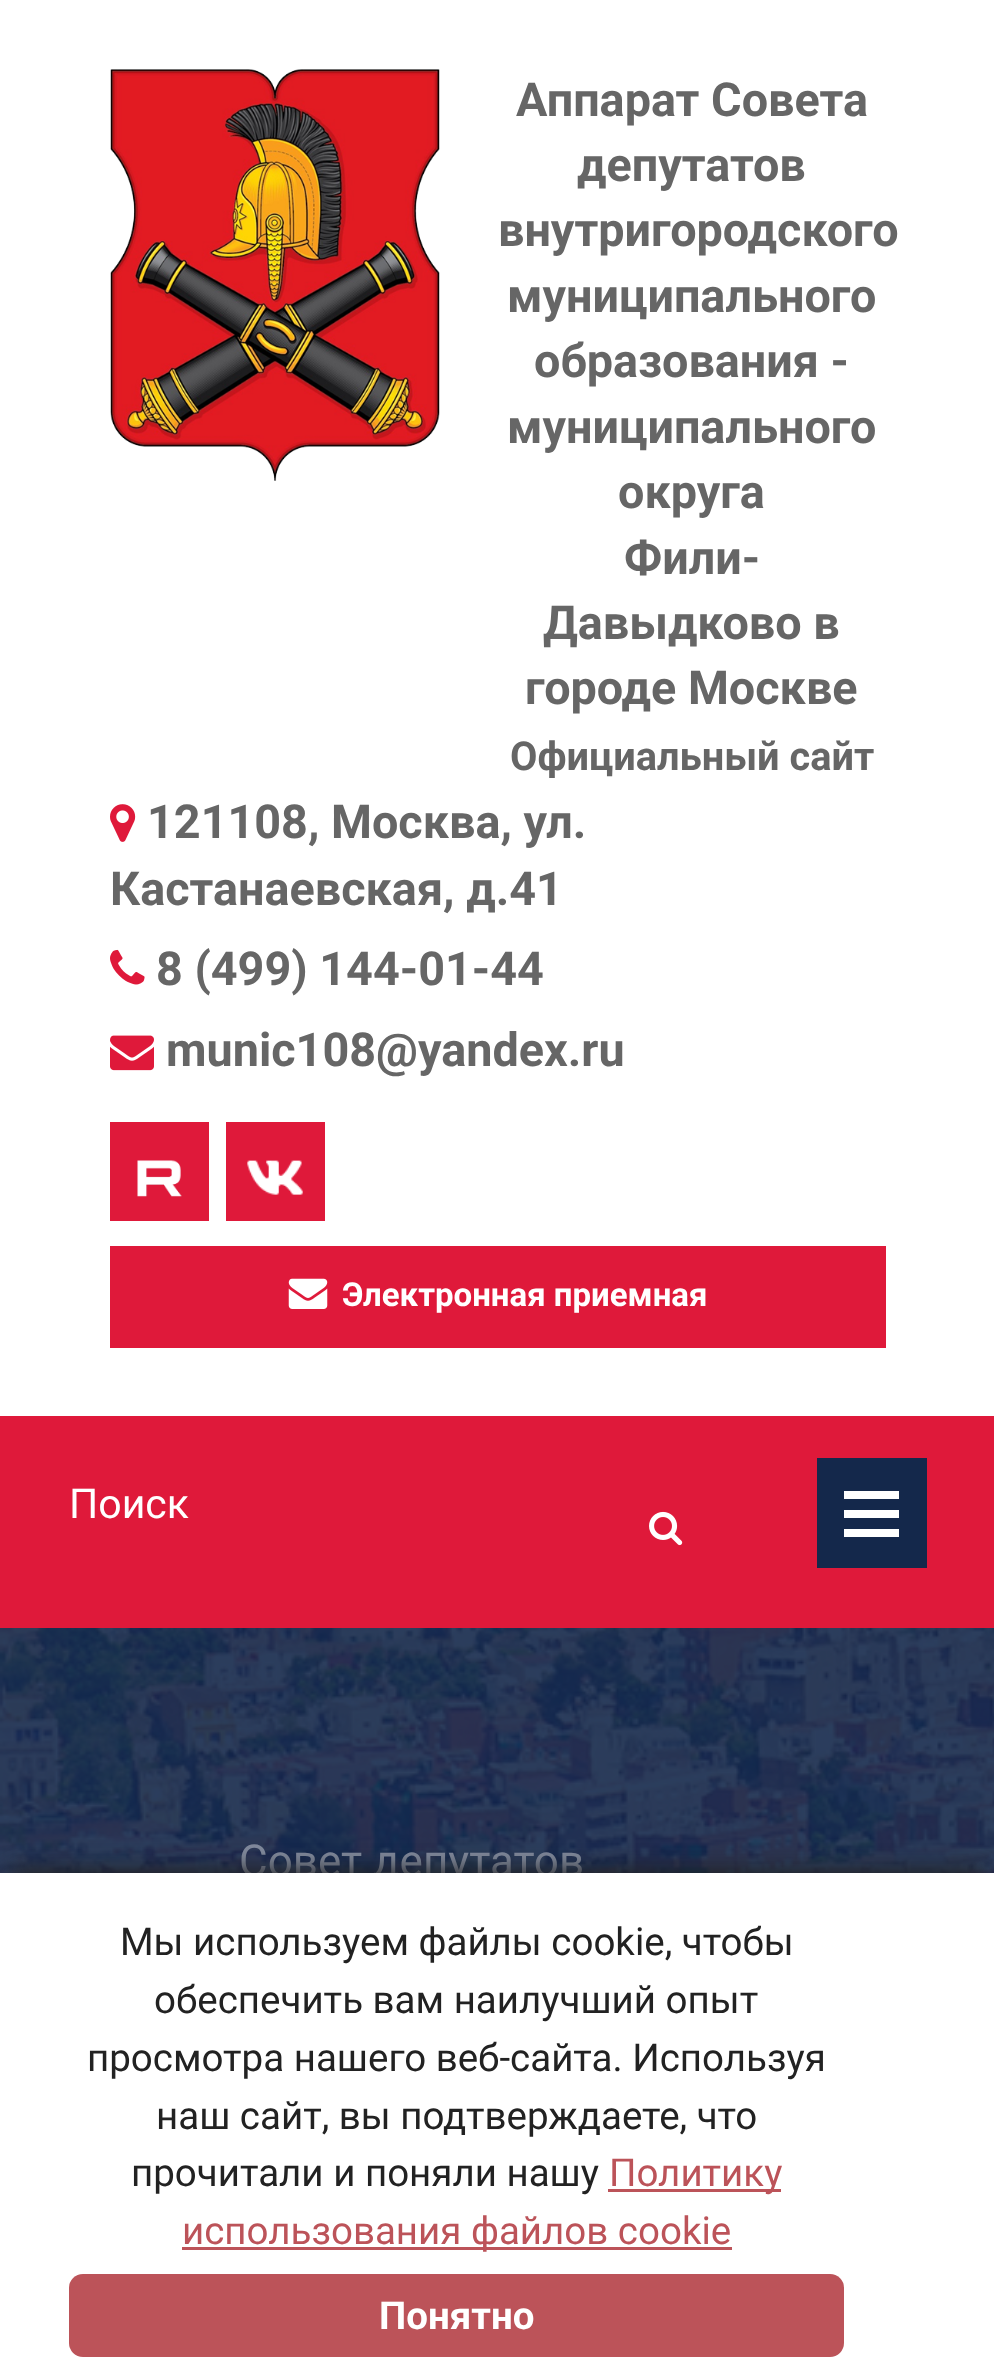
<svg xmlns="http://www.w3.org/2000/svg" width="994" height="2379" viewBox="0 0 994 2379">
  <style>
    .t1 { font: bold 46.75px Roboto; fill: #666; }
    .t2 { font: bold 39.75px Roboto; fill: #666; }
    .t3 { font: bold 33px Roboto; fill: #fff; }
    .t4 { font: 41px Roboto; fill: #fff; }
    .t5 { font: 44px Roboto; fill: #80899c; }
    .t6 { font: 38.5px Roboto; fill: #222; }
    .t7 { font: 38.5px Roboto; fill: #bc5359; }
    .t8 { font: bold 38.5px Roboto; fill: #fff; }
  </style>
  <rect width="100%" height="100%" fill="#fff"/>
  <image x="110" y="69" width="330" height="412" href="images/1.png"/>
  <text x="516" y="116" class="t1">Аппарат Совета</text>
  <text x="577" y="181" class="t1">депутатов</text>
  <text x="498" y="246" class="t1">внутригородского</text>
  <text x="507" y="312" class="t1">муниципального</text>
  <text x="534" y="377" class="t1">образования -</text>
  <text x="507" y="443" class="t1">муниципального</text>
  <text x="618" y="508" class="t1">округа</text>
  <text x="624" y="574" class="t1">Фили-</text>
  <text x="543" y="639" class="t1">Давыдково в</text>
  <text x="525" y="704" class="t1">городе Москве</text>
  <text x="510" y="770" class="t2">Официальный сайт</text>
  <image x="110" y="804" width="26" height="38" href="images/2.png"/>
  <text x="147" y="838" class="t1">121108, Москва, ул.</text>
  <text x="110" y="905" class="t1">Кастанаевская, д.41</text>
  <image x="110" y="949" width="35" height="36" href="images/3.png"/>
  <text x="156" y="985" class="t1">8 (499) 144-01-44</text>
  <image x="110" y="1035" width="44" height="36" href="images/4.png"/>
  <text x="166" y="1066" class="t1">munic108@yandex.ru</text>
  <rect x="110" y="1122" width="99" height="99" fill="#df193a"/>
  <image x="137" y="1160" width="45" height="37" href="images/5.png"/>
  <rect x="226" y="1122" width="99" height="99" fill="#df193a"/>
  <image x="247" y="1160" width="56" height="35" href="images/6.png"/>
  <rect x="110" y="1246" width="776" height="102" fill="#df193a"/>
  <image x="288" y="1278" width="40" height="31" href="images/7.png"/>
  <text x="342" y="1306" class="t3">Электронная приемная</text>
  <rect x="0" y="1416" width="994" height="212" fill="#df193a"/>
  <text x="69" y="1518" class="t4">Поиск</text>
  <image x="649" y="1511" width="34" height="35" href="images/8.png"/>
  <rect x="817" y="1458" width="110" height="110" fill="#14284b"/>
  <rect x="844" y="1529" width="55" height="8" fill="#fff"/>
  <rect x="844" y="1510" width="55" height="8" fill="#fff"/>
  <rect x="844" y="1491" width="55" height="8" fill="#fff"/>
  <image x="0" y="1628" width="994" height="245" href="images/9.png"/>
  <text x="239" y="1876" class="t5">Совет депутатов</text>
  <rect x="11" y="1870" width="974" height="487" fill="#222" filter="blur(11px)"/>
  <rect x="0" y="1873" width="994" height="506" fill="#fff"/>
  <text x="120" y="1955" class="t6">Мы используем файлы cookie, чтобы</text>
  <text x="154" y="2013" class="t6">обеспечить вам наилучший опыт</text>
  <text x="87" y="2071" class="t6">просмотра нашего веб-сайта. Используя</text>
  <text x="156" y="2129" class="t6">наш сайт, вы подтверждаете, что</text>
  <text x="131" y="2186" class="t6">прочитали и поняли нашу</text>
  <rect x="608" y="2189" width="173" height="3" fill="#bc5359"/>
  <text x="609" y="2186" class="t7">Политику</text>
  <rect x="182" y="2247" width="550" height="3" fill="#bc5359"/>
  <text x="182" y="2244" class="t7">использования файлов cookie</text>
  <rect x="69" y="2274" width="775" height="83" rx="14" fill="#bc5359"/>
  <text x="379" y="2329" class="t8">Понятно</text>
</svg>
